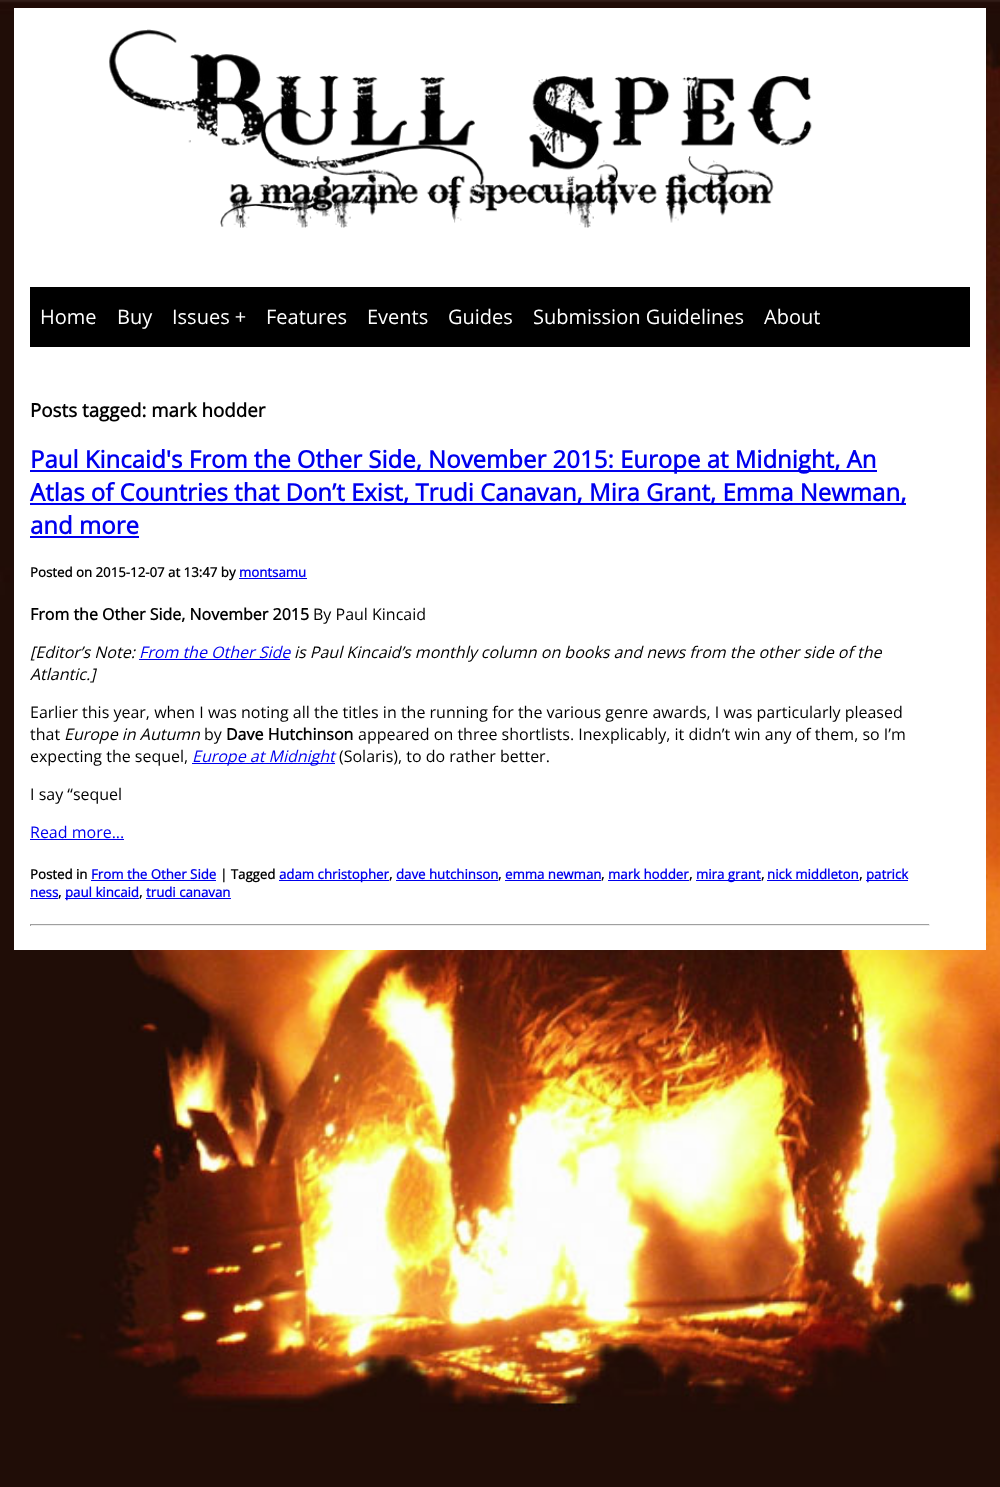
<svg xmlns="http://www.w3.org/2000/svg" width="1000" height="1487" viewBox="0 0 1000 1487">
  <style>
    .t1 { font: 20px Open Sans; fill: #fff; }
    .t2 { font: bold 18.75px Open Sans; fill: #000; }
    .t3 { font: bold 24px Open Sans; fill: #00e; }
    .t4 { font: bold 13.25px Open Sans; fill: #000; }
    .t5 { font: bold 13.25px Open Sans; fill: #00e; }
    .t6 { font: bold 16px Open Sans; fill: #000; }
    .t7 { font: 16px Open Sans; fill: #000; }
    .t8 { font: italic 16px Open Sans; fill: #000; }
    .t9 { font: italic 16px Open Sans; fill: #00e; }
    .t10 { font: 16px Open Sans; fill: #00e; }
  </style>
  <rect width="100%" height="100%" fill="#fff"/>
  <image x="0" y="0" width="1000" height="1487" href="images/1.png"/>
  <rect x="14" y="8" width="972" height="942" fill="#fff"/>
  <image x="109" y="29" width="703" height="199" href="images/2.png"/>
  <rect x="30" y="287" width="940" height="60" fill="#000"/>
  <text x="40" y="324" class="t1">Home</text>
  <text x="117" y="324" class="t1">Buy</text>
  <text x="172" y="324" class="t1">Issues +</text>
  <text x="266" y="324" class="t1">Features</text>
  <text x="367" y="324" class="t1">Events</text>
  <text x="448" y="324" class="t1">Guides</text>
  <text x="533" y="324" class="t1">Submission Guidelines</text>
  <text x="764" y="324" class="t1">About</text>
  <text x="30" y="417" class="t2">Posts tagged: mark hodder</text>
  <rect x="30" y="470" width="847" height="2" fill="#00e"/>
  <text x="30" y="468" class="t3">Paul Kincaid's From the Other Side, November 2015: Europe at Midnight, An</text>
  <rect x="30" y="503" width="876" height="2" fill="#00e"/>
  <text x="30" y="501" class="t3">Atlas of Countries that Don’t Exist, Trudi Canavan, Mira Grant, Emma Newman,</text>
  <text x="30" y="534" class="t3">and more</text>
  <rect x="30" y="536" width="109" height="2" fill="#00e"/>
  <text x="30" y="577" class="t4">Posted on 2015-12-07 at 13:47 by</text>
  <text x="239" y="577" class="t5">montsamu</text>
  <rect x="239" y="578" width="68" height="1" fill="#00e"/>
  <text x="30" y="620" class="t6">From the Other Side, November 2015</text>
  <text x="313" y="620" class="t7">By Paul Kincaid</text>
  <text x="30" y="658" class="t8">[Editor’s Note:</text>
  <text x="139" y="658" class="t9">From the Other Side</text>
  <rect x="139" y="659" width="151" height="1" fill="#00e"/>
  <text x="294" y="658" class="t8">is Paul Kincaid’s monthly column on books and news from the other side of the</text>
  <text x="30" y="680" class="t8">Atlantic.]</text>
  <text x="30" y="718" class="t7">Earlier this year, when I was noting all the titles in the running for the various genre awards, I was particularly pleased</text>
  <text x="30" y="740" class="t7">that</text>
  <text x="64" y="740" class="t8">Europe in Autumn</text>
  <text x="204" y="740" class="t7">by</text>
  <text x="226" y="740" class="t6">Dave Hutchinson</text>
  <text x="358" y="740" class="t7">appeared on three shortlists. Inexplicably, it didn’t win any of them, so I’m</text>
  <text x="30" y="762" class="t7">expecting the sequel,</text>
  <rect x="192" y="763" width="143" height="1" fill="#00e"/>
  <text x="192" y="762" class="t9">Europe at Midnight</text>
  <text x="339" y="762" class="t7">(Solaris), to do rather better.</text>
  <text x="30" y="800" class="t7">I say “sequel</text>
  <text x="30" y="838" class="t10">Read more...</text>
  <rect x="30" y="839" width="94" height="1" fill="#00e"/>
  <text x="30" y="879" class="t4">Posted in</text>
  <text x="91" y="879" class="t5">From the Other Side</text>
  <rect x="91" y="880" width="125" height="1" fill="#00e"/>
  <text x="220" y="879" class="t4">| Tagged</text>
  <rect x="279" y="880" width="110" height="1" fill="#00e"/>
  <text x="279" y="879" class="t5">adam christopher</text>
  <text x="389" y="879" class="t4">,</text>
  <text x="396" y="879" class="t5">dave hutchinson</text>
  <text x="498" y="879" class="t4">,</text>
  <rect x="396" y="880" width="102" height="1" fill="#00e"/>
  <text x="505" y="879" class="t5">emma newman</text>
  <text x="601" y="879" class="t4">,</text>
  <rect x="505" y="880" width="96" height="1" fill="#00e"/>
  <text x="608" y="879" class="t5">mark hodder</text>
  <text x="689" y="879" class="t4">,</text>
  <rect x="608" y="880" width="81" height="1" fill="#00e"/>
  <rect x="696" y="880" width="65" height="1" fill="#00e"/>
  <text x="696" y="879" class="t5">mira grant</text>
  <text x="761" y="879" class="t4">,</text>
  <text x="767" y="879" class="t5">nick middleton</text>
  <text x="859" y="879" class="t4">,</text>
  <rect x="767" y="880" width="92" height="1" fill="#00e"/>
  <rect x="866" y="880" width="42" height="1" fill="#00e"/>
  <text x="866" y="879" class="t5">patrick</text>
  <text x="30" y="897" class="t5">ness</text>
  <text x="58" y="897" class="t4">,</text>
  <rect x="30" y="898" width="28" height="1" fill="#00e"/>
  <rect x="65" y="898" width="74" height="1" fill="#00e"/>
  <text x="65" y="897" class="t5">paul kincaid</text>
  <text x="139" y="897" class="t4">,</text>
  <rect x="146" y="898" width="85" height="1" fill="#00e"/>
  <text x="146" y="897" class="t5">trudi canavan</text>
  <rect x="30" y="924" width="900" height="1" fill="#9f9f9f"/>
  <rect x="929" y="924" width="1" height="2" fill="#eee"/>
  <rect x="30" y="925" width="900" height="1" fill="#eee"/>
  <rect x="30" y="924" width="1" height="2" fill="#9f9f9f"/>
</svg>
